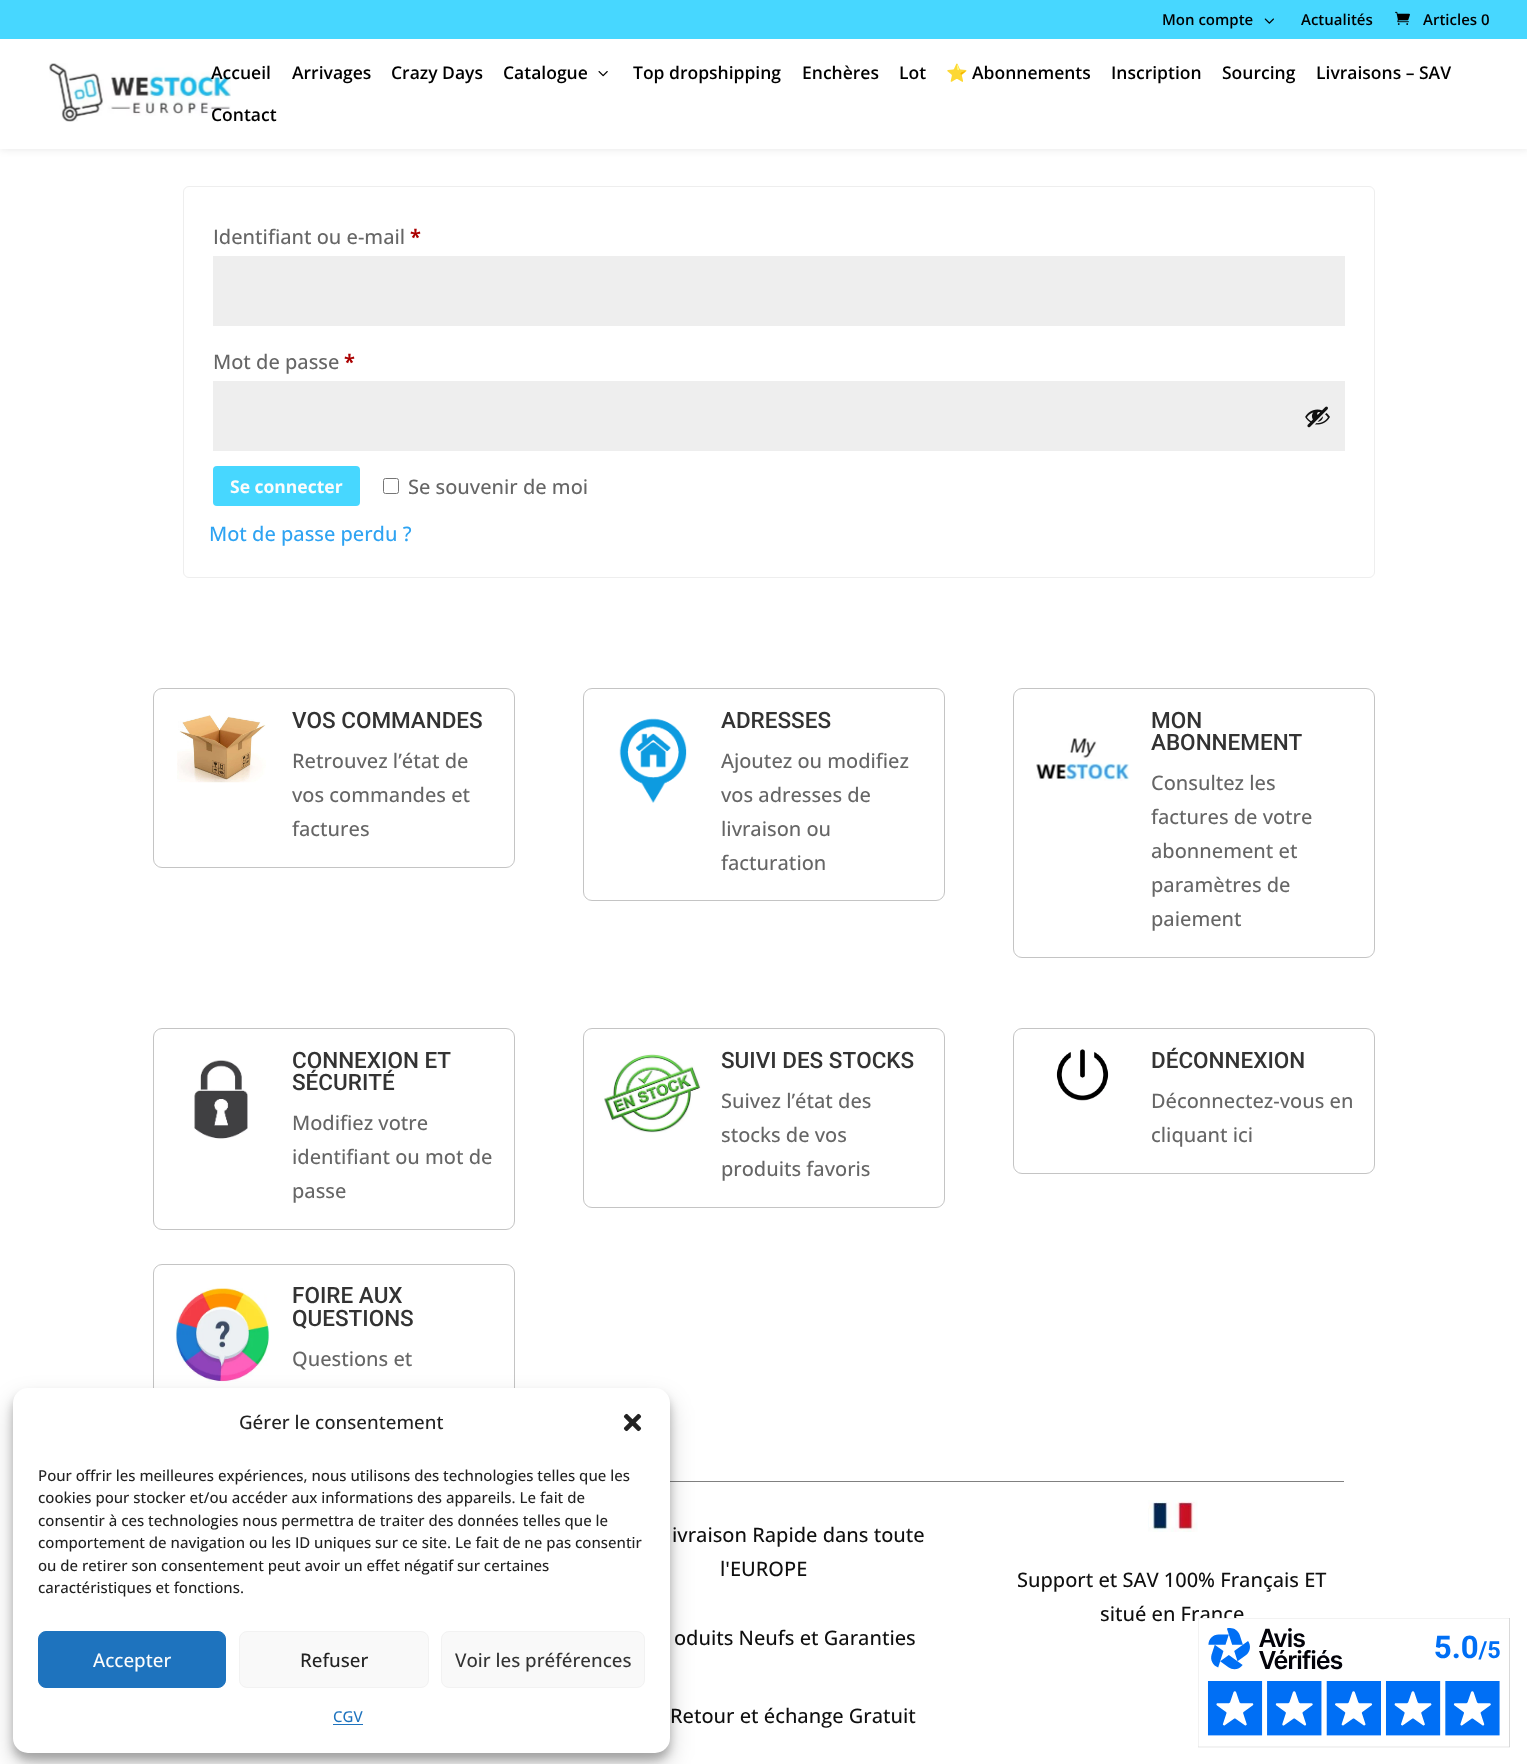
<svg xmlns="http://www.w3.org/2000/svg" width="1527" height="1764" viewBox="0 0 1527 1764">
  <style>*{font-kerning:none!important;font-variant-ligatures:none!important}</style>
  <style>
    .t1 { font: 600 15px Open Sans; fill: #000; }
    .t2 { font: 600 17.5px Open Sans; fill: #000; }
    .t3 { font: bold 17.5px Noto Color Emoji; fill: #000; }
    .t4 { font: 500 20px Open Sans; fill: #666; }
    .t5 { font: bold 20px Open Sans; fill: #a00; }
    .t6 { font: bold 17.5px Open Sans; fill: #fcfcfc; }
    .t7 { font: 500 20px Open Sans; fill: #2ea3f2; }
    .t8 { font: 500 22.5px Roboto; fill: #333; }
    .t9 { font: 500 20px Open Sans; fill: #0f0f0f; }
    .t10 { font: 500 18.75px Open Sans; fill: #222; }
    .t11 { font: 500 15px Open Sans; fill: #222; }
    .t12 { font: 500 18.75px Open Sans; fill: #fcfcfc; }
    .t13 { font: 500 18.75px Open Sans; fill: #333; }
    .t14 { font: 500 15px Open Sans; fill: #1e73be; }
  </style>
  <rect width="100%" height="100%" fill="#fff"/>
  <rect x="0" y="39" width="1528" height="110" fill="#0000001a" filter="blur(4.5px)"/>
  <rect x="0" y="0" width="1527" height="39" fill="#47d7ff"/>
  <text x="1162" y="25" class="t1">Mon compte</text>
  <image x="1264" y="18" width="10" height="6" href="images/1.png"/>
  <text x="1301" y="25" class="t1">Actualités</text>
  <image x="1395" y="11" width="15" height="14" href="images/2.png"/>
  <text x="1423" y="25" class="t1">Articles 0</text>
  <rect x="0" y="39" width="1527" height="110" fill="#fff"/>
  <image x="49" y="63" width="182" height="59" href="images/3.png"/>
  <text x="211" y="79" class="t2">Accueil</text>
  <text x="292" y="79" class="t2">Arrivages</text>
  <text x="391" y="79" class="t2">Crazy Days</text>
  <text x="503" y="79" class="t2">Catalogue</text>
  <image x="598" y="71" width="10" height="6" href="images/4.png"/>
  <text x="633" y="79" class="t2">Top dropshipping</text>
  <text x="802" y="79" class="t2">Enchères</text>
  <text x="899" y="79" class="t2">Lot</text>
  <text x="946" y="79" class="t3">⭐</text>
  <text x="972" y="79" class="t2">Abonnements</text>
  <text x="1111" y="79" class="t2">Inscription</text>
  <text x="1222" y="79" class="t2">Sourcing</text>
  <text x="1316" y="79" class="t2">Livraisons – SAV</text>
  <text x="211" y="121" class="t2">Contact</text>
  <rect x="183.5" y="186.5" width="1191" height="391" rx="5.5" fill="none" stroke="#eee"/>
  <text x="213" y="244" class="t4">Identifiant ou e-mail</text>
  <text x="410" y="244" class="t5">*</text>
  <rect x="213" y="256" width="1132" height="70" fill="#eee"/>
  <text x="213" y="369" class="t4">Mot de passe</text>
  <text x="344" y="369" class="t5">*</text>
  <rect x="213" y="381" width="1132" height="70" fill="#eee"/>
  <image x="1305" y="406" width="25" height="22" href="images/5.png"/>
  <rect x="213" y="466" width="147" height="40" rx="4" fill="#47d7ff"/>
  <text x="230" y="493" class="t6">Se connecter</text>
  <rect x="383.5" y="478.5" width="15" height="15" rx="2" fill="none" stroke="#767676"/>
  <text x="408" y="494" class="t4">Se souvenir de moi</text>
  <text x="209" y="541" class="t7">Mot de passe perdu ?</text>
  <rect x="153.5" y="688.5" width="361" height="179" rx="8.5" fill="none" stroke="#c4c4c4"/>
  <image x="177" y="715" width="89" height="68" href="images/6.png"/>
  <text x="292" y="728" class="t8">VOS COMMANDES</text>
  <text x="292" y="768" class="t4">Retrouvez l’état de</text>
  <text x="292" y="802" class="t4">vos commandes et</text>
  <text x="292" y="836" class="t4">factures</text>
  <rect x="583.5" y="688.5" width="361" height="212" rx="8.5" fill="none" stroke="#c4c4c4"/>
  <image x="619" y="718" width="68" height="85" href="images/7.png"/>
  <text x="721" y="728" class="t8">ADRESSES</text>
  <text x="721" y="768" class="t4">Ajoutez ou modifiez</text>
  <text x="721" y="802" class="t4">vos adresses de</text>
  <text x="721" y="836" class="t4">livraison ou</text>
  <text x="721" y="870" class="t4">facturation</text>
  <rect x="1013.5" y="688.5" width="361" height="269" rx="8.5" fill="none" stroke="#c4c4c4"/>
  <image x="1036" y="738" width="94" height="43" href="images/8.png"/>
  <text x="1151" y="728" class="t8">MON</text>
  <text x="1151" y="750" class="t8">ABONNEMENT</text>
  <text x="1151" y="790" class="t4">Consultez les</text>
  <text x="1151" y="824" class="t4">factures de votre</text>
  <text x="1151" y="858" class="t4">abonnement et</text>
  <text x="1151" y="892" class="t4">paramètres de</text>
  <text x="1151" y="926" class="t4">paiement</text>
  <rect x="153.5" y="1028.5" width="361" height="201" rx="8.5" fill="none" stroke="#c4c4c4"/>
  <image x="194" y="1060" width="54" height="79" href="images/9.png"/>
  <text x="292" y="1068" class="t8">CONNEXION ET</text>
  <text x="292" y="1090" class="t8">SÉCURITÉ</text>
  <text x="292" y="1130" class="t4">Modifiez votre</text>
  <text x="292" y="1164" class="t4">identifiant ou mot de</text>
  <text x="292" y="1198" class="t4">passe</text>
  <rect x="153.5" y="1264.5" width="361" height="200" rx="8.5" fill="none" stroke="#c4c4c4"/>
  <image x="175" y="1288" width="95" height="94" href="images/10.png"/>
  <text x="292" y="1303" class="t8">FOIRE AUX</text>
  <text x="292" y="1326" class="t8">QUESTIONS</text>
  <text x="292" y="1366" class="t4">Questions et</text>
  <rect x="583.5" y="1028.5" width="361" height="179" rx="8.5" fill="none" stroke="#c4c4c4"/>
  <image x="604" y="1054" width="97" height="79" href="images/11.png"/>
  <text x="721" y="1068" class="t8">SUIVI DES STOCKS</text>
  <text x="721" y="1108" class="t4">Suivez l’état des</text>
  <text x="721" y="1142" class="t4">stocks de vos</text>
  <text x="721" y="1176" class="t4">produits favoris</text>
  <rect x="1013.5" y="1028.5" width="361" height="145" rx="8.5" fill="none" stroke="#c4c4c4"/>
  <image x="1056" y="1049" width="53" height="52" href="images/12.png"/>
  <text x="1151" y="1068" class="t8">DÉCONNEXION</text>
  <text x="1151" y="1108" class="t4">Déconnectez-vous en</text>
  <text x="1151" y="1142" class="t4">cliquant ici</text>
  <rect x="670" y="1481" width="674" height="1" fill="#808080"/>
  <text x="672" y="1542" class="t9">ivraison Rapide dans toute</text>
  <text x="720" y="1576" class="t9">l'EUROPE</text>
  <text x="674" y="1645" class="t9">oduits Neufs et Garanties</text>
  <text x="670" y="1723" class="t9">Retour et échange Gratuit</text>
  <image x="1148" y="1500" width="50" height="32" href="images/13.png"/>
  <text x="1017" y="1587" class="t9">Support et SAV 100% Français ET</text>
  <text x="1100" y="1621" class="t9">situé en France</text>
  <rect x="13" y="1395" width="657" height="365" rx="15" fill="#0000003b" filter="blur(4px)"/>
  <rect x="13" y="1400" width="657" height="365" rx="15" fill="#00000030" filter="blur(12.5px)"/>
  <rect x="13" y="1388" width="657" height="365" rx="15" fill="#fff"/>
  <text x="239" y="1429" class="t10">Gérer le consentement</text>
  <image x="623" y="1413" width="19" height="19" href="images/14.png"/>
  <text x="38" y="1481" class="t11">Pour offrir les meilleures expériences, nous utilisons des technologies telles que les</text>
  <text x="38" y="1503" class="t11">cookies pour stocker et/ou accéder aux informations des appareils. Le fait de</text>
  <text x="38" y="1526" class="t11">consentir à ces technologies nous permettra de traiter des données telles que le</text>
  <text x="38" y="1548" class="t11">comportement de navigation ou les ID uniques sur ce site. Le fait de ne pas consentir</text>
  <text x="38" y="1571" class="t11">ou de retirer son consentement peut avoir un effet négatif sur certaines</text>
  <text x="38" y="1593" class="t11">caractéristiques et fonctions.</text>
  <rect x="38.5" y="1631.5" width="187" height="56" rx="7.5" fill="#1e73be" stroke="#1e73be"/>
  <text x="93" y="1667" class="t12">Accepter</text>
  <rect x="239.5" y="1631.5" width="189" height="56" rx="7.5" fill="#f9f9f9" stroke="#f2f2f2"/>
  <text x="300" y="1667" class="t10">Refuser</text>
  <rect x="441.5" y="1631.5" width="203" height="56" rx="7.5" fill="#f9f9f9" stroke="#f2f2f2"/>
  <text x="455" y="1667" class="t13">Voir les préférences</text>
  <text x="333" y="1722" class="t14">CGV</text>
  <rect x="333" y="1724" width="30" height="1" fill="#1e73be"/>
  <image x="1198" y="1618" width="312" height="130" href="images/15.png"/>
</svg>
